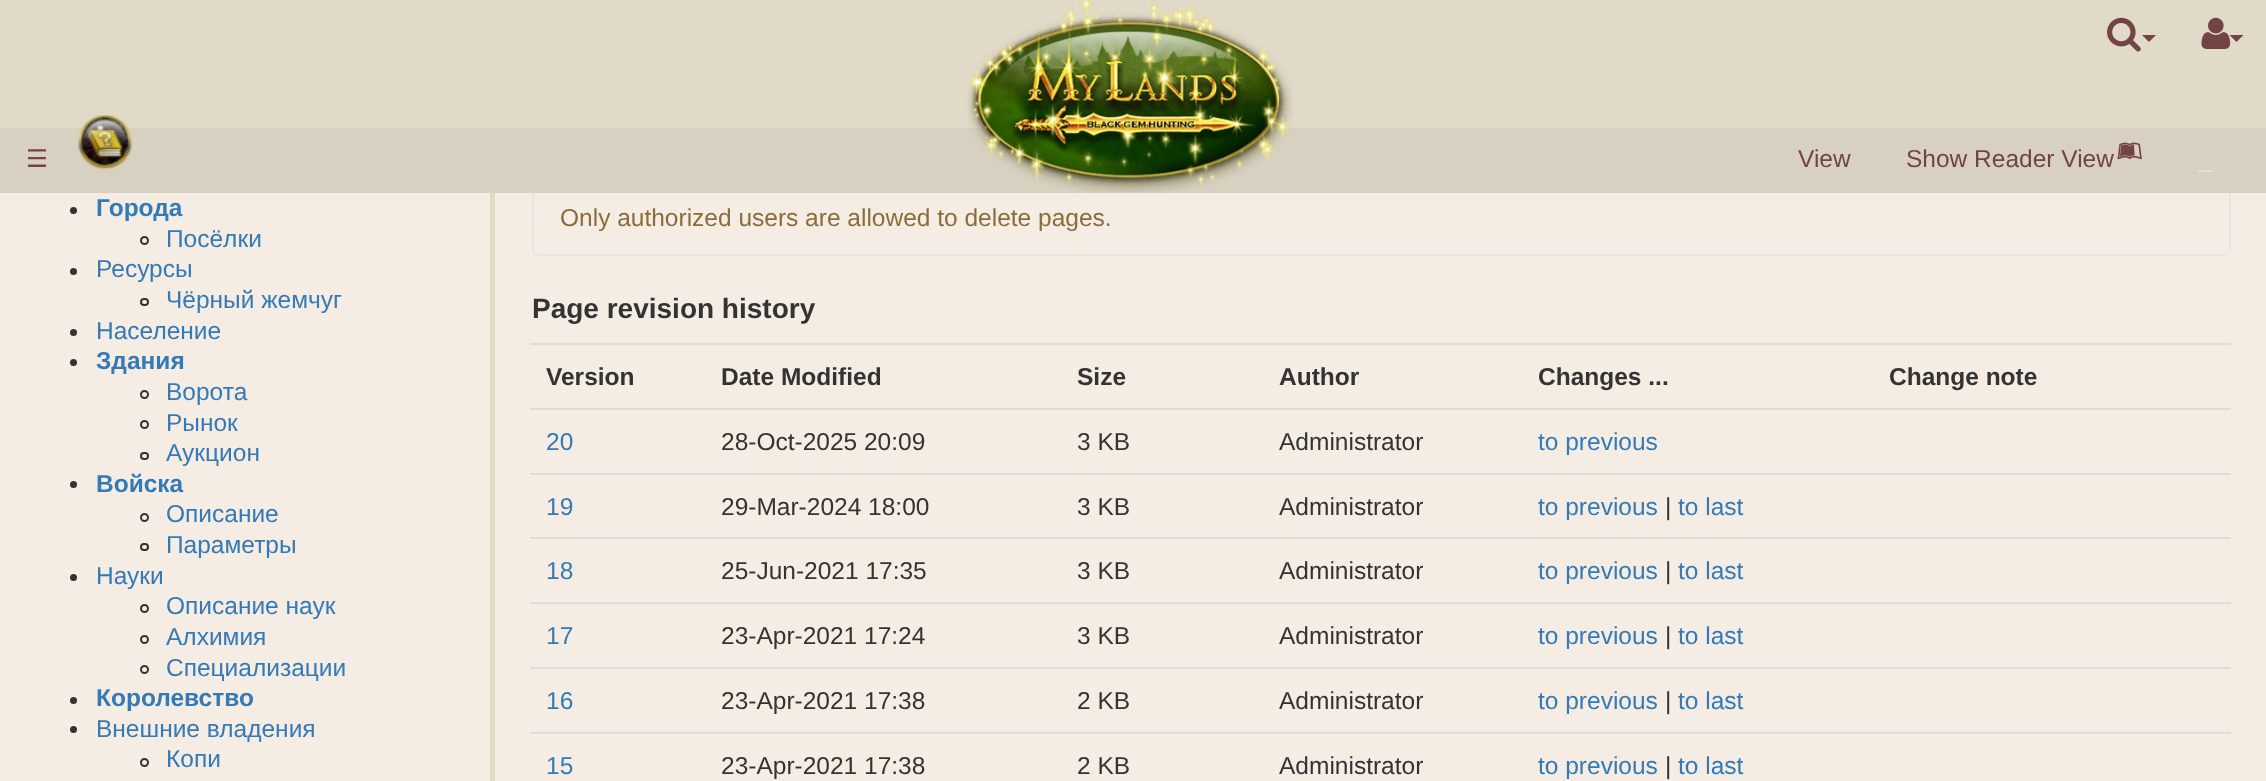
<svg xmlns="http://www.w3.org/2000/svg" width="2266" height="781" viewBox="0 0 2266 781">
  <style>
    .t1 { font: 24.5px DejaVu Sans; fill: #724444; }
    .t2 { font: 24.5px Liberation Sans; fill: #724444; }
    .t3 { font: bold 24.5px Liberation Sans; fill: #337ab7; }
    .t4 { font: 24.5px Liberation Sans; fill: #337ab7; }
    .t5 { font: 24.5px Liberation Sans; fill: #8a6d3b; }
    .t6 { font: bold 28px Liberation Sans; fill: #333; }
    .t7 { font: bold 24.5px Liberation Sans; fill: #333; }
    .t8 { font: 24.5px Liberation Sans; fill: #333; }
  </style>
  <rect width="100%" height="100%" fill="#f5ede4"/>
  <rect x="533" y="22" width="1697" height="233" rx="6" fill="none" stroke="#e5e5e5" stroke-width="2"/>
  <rect x="0" y="0" width="2266" height="128" fill="#e1dac9"/>
  <rect x="0" y="128" width="2266" height="65" fill="#d8d1c1"/>
  <image x="967" y="0" width="326" height="193" href="images/1.png"/>
  <image x="2107" y="17" width="34" height="35" href="images/2.png"/>
  <path d="M2142 35H2156L2149 42Z" fill="#724444"/>
  <path d="M2229.5 35H2243.5L2236.5 42Z" fill="#724444"/>
  <image x="2201" y="17" width="30" height="32" href="images/3.png"/>
  <text x="26" y="167" class="t1">☰</text>
  <image x="78" y="115" width="54" height="55" href="images/4.png"/>
  <text x="1798" y="167" class="t2">View</text>
  <text x="1906" y="167" class="t2">Show Reader View</text>
  <image x="2117" y="142" width="25" height="18" href="images/5.png"/>
  <rect x="2198" y="170" width="16" height="2" fill="#dedede"/>
  <circle cx="73.5" cy="210.5" r="3.5" fill="#333"/>
  <text x="96" y="216" class="t3">Города</text>
  <circle cx="144.5" cy="240.5" r="3.5" fill="none" stroke="#333" stroke-width="2"/>
  <text x="166" y="247" class="t4">Посёлки</text>
  <circle cx="73.5" cy="271.5" r="3.5" fill="#333"/>
  <text x="96" y="277" class="t4">Ресурсы</text>
  <rect x="141" y="299" width="7" height="6" rx="3" fill="none" stroke="#333" stroke-width="2"/>
  <text x="166" y="308" class="t4">Чёрный жемчуг</text>
  <circle cx="73.5" cy="332.5" r="3.5" fill="#333"/>
  <text x="96" y="339" class="t4">Население</text>
  <circle cx="73.5" cy="362.5" r="3.5" fill="#333"/>
  <text x="96" y="369" class="t3">Здания</text>
  <circle cx="144.5" cy="394.5" r="3.5" fill="none" stroke="#333" stroke-width="2"/>
  <text x="166" y="400" class="t4">Ворота</text>
  <circle cx="144.5" cy="424.5" r="3.5" fill="none" stroke="#333" stroke-width="2"/>
  <text x="166" y="431" class="t4">Рынок</text>
  <rect x="141" y="453" width="7" height="6" rx="3" fill="none" stroke="#333" stroke-width="2"/>
  <text x="166" y="461" class="t4">Аукцион</text>
  <circle cx="73.5" cy="484.5" r="3.5" fill="#333"/>
  <text x="96" y="492" class="t3">Войска</text>
  <circle cx="144.5" cy="517.5" r="3.5" fill="none" stroke="#333" stroke-width="2"/>
  <text x="166" y="522" class="t4">Описание</text>
  <rect x="141" y="544" width="7" height="6" rx="3" fill="none" stroke="#333" stroke-width="2"/>
  <text x="166" y="553" class="t4">Параметры</text>
  <circle cx="73.5" cy="577.5" r="3.5" fill="#333"/>
  <text x="96" y="584" class="t4">Науки</text>
  <circle cx="144.5" cy="608.5" r="3.5" fill="none" stroke="#333" stroke-width="2"/>
  <text x="166" y="614" class="t4">Описание наук</text>
  <circle cx="144.5" cy="639.5" r="3.5" fill="none" stroke="#333" stroke-width="2"/>
  <text x="166" y="645" class="t4">Алхимия</text>
  <circle cx="144.5" cy="669.5" r="3.5" fill="none" stroke="#333" stroke-width="2"/>
  <text x="166" y="676" class="t4">Специализации</text>
  <circle cx="73.5" cy="700.5" r="3.5" fill="#333"/>
  <text x="96" y="706" class="t3">Королевство</text>
  <circle cx="73.5" cy="729.5" r="3.5" fill="#333"/>
  <text x="96" y="737" class="t4">Внешние владения</text>
  <circle cx="144.5" cy="762.5" r="3.5" fill="none" stroke="#333" stroke-width="2"/>
  <text x="166" y="767" class="t4">Копи</text>
  <rect x="490" y="193" width="5" height="588" fill="#e1dac9"/>
  <text x="560" y="226" class="t5">Only authorized users are allowed to delete pages.</text>
  <text x="532" y="318" class="t6">Page revision history</text>
  <text x="546" y="385" class="t7">Version</text>
  <text x="721" y="385" class="t7">Date Modified</text>
  <text x="1077" y="385" class="t7">Size</text>
  <text x="1279" y="385" class="t7">Author</text>
  <text x="1538" y="385" class="t7">Changes ...</text>
  <rect x="530" y="343" width="1701" height="2" fill="#ddd"/>
  <text x="1889" y="385" class="t7">Change note</text>
  <rect x="530" y="408" width="1701" height="2" fill="#ddd"/>
  <text x="546" y="450" class="t4">20</text>
  <text x="721" y="450" class="t8">28-Oct-2025 20:09</text>
  <text x="1077" y="450" class="t8">3 KB</text>
  <text x="1279" y="450" class="t8">Administrator</text>
  <text x="1538" y="450" class="t4">to previous</text>
  <rect x="530" y="473" width="1701" height="2" fill="#ddd"/>
  <text x="546" y="515" class="t4">19</text>
  <text x="721" y="515" class="t8">29-Mar-2024 18:00</text>
  <text x="1077" y="515" class="t8">3 KB</text>
  <text x="1279" y="515" class="t8">Administrator</text>
  <text x="1538" y="515" class="t4">to previous</text>
  <text x="1665" y="515" class="t8">|</text>
  <text x="1678" y="515" class="t4">to last</text>
  <rect x="530" y="537" width="1701" height="2" fill="#ddd"/>
  <text x="546" y="579" class="t4">18</text>
  <text x="721" y="579" class="t8">25-Jun-2021 17:35</text>
  <text x="1077" y="579" class="t8">3 KB</text>
  <text x="1279" y="579" class="t8">Administrator</text>
  <text x="1538" y="579" class="t4">to previous</text>
  <text x="1665" y="579" class="t8">|</text>
  <text x="1678" y="579" class="t4">to last</text>
  <rect x="530" y="602" width="1701" height="2" fill="#ddd"/>
  <text x="546" y="644" class="t4">17</text>
  <text x="721" y="644" class="t8">23-Apr-2021 17:24</text>
  <text x="1077" y="644" class="t8">3 KB</text>
  <text x="1279" y="644" class="t8">Administrator</text>
  <text x="1538" y="644" class="t4">to previous</text>
  <text x="1665" y="644" class="t8">|</text>
  <text x="1678" y="644" class="t4">to last</text>
  <rect x="530" y="667" width="1701" height="2" fill="#ddd"/>
  <text x="546" y="709" class="t4">16</text>
  <text x="721" y="709" class="t8">23-Apr-2021 17:38</text>
  <text x="1077" y="709" class="t8">2 KB</text>
  <text x="1279" y="709" class="t8">Administrator</text>
  <text x="1538" y="709" class="t4">to previous</text>
  <text x="1665" y="709" class="t8">|</text>
  <text x="1678" y="709" class="t4">to last</text>
  <rect x="530" y="732" width="1701" height="2" fill="#ddd"/>
  <text x="546" y="774" class="t4">15</text>
  <text x="721" y="774" class="t8">23-Apr-2021 17:38</text>
  <text x="1077" y="774" class="t8">2 KB</text>
  <text x="1279" y="774" class="t8">Administrator</text>
  <text x="1538" y="774" class="t4">to previous</text>
  <text x="1665" y="774" class="t8">|</text>
  <text x="1678" y="774" class="t4">to last</text>
</svg>
